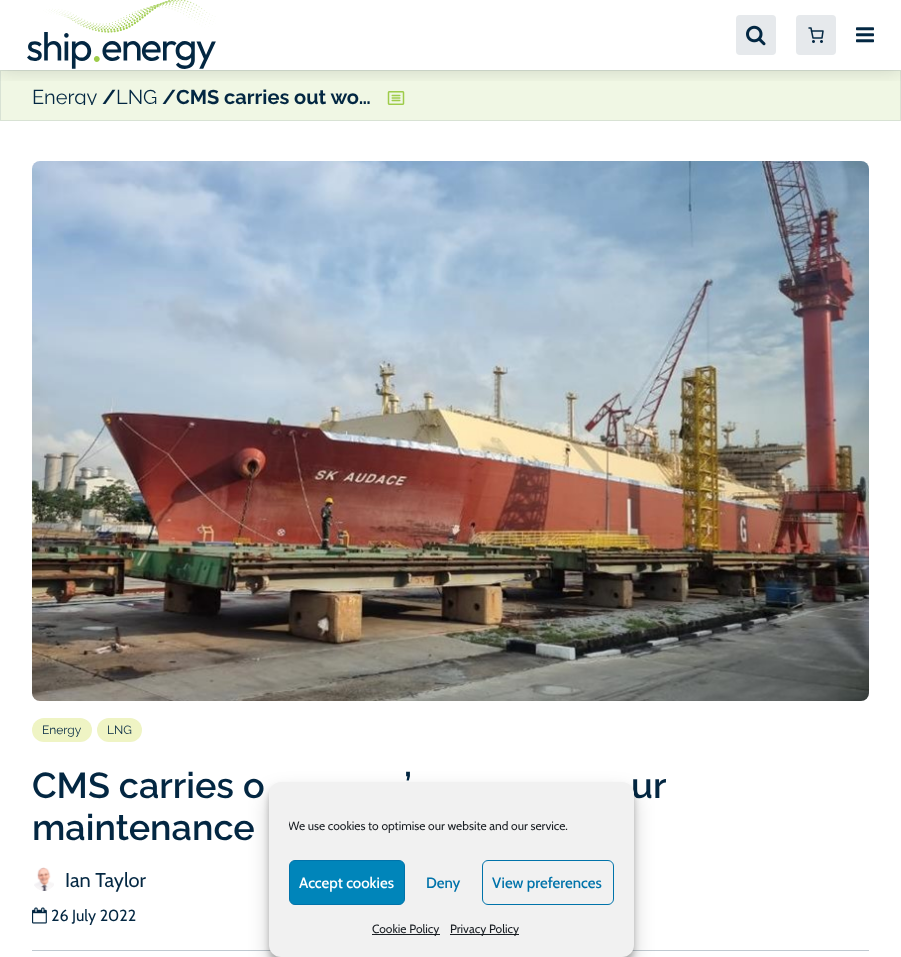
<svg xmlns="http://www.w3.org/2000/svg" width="901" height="957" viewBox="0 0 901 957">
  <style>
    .t1 { font: 20px Raleway; fill: #032742; }
    .t2 { font: bold 20px Raleway; fill: #032742; }
    .t3 { font: 12px Raleway; fill: #032742; }
    .t4 { font: 600 36px Raleway; fill: #032742; }
    .t5 { font: 20px Cabin; fill: #032742; }
    .t6 { font: 16px Cabin; fill: #032742; }
    .t7 { font: 12px Cabin; fill: #191e23; }
    .t8 { font: 500 15px Cabin; fill: #fff; }
    .t9 { font: 500 15px Cabin; fill: #0073aa; }
  </style>
  <defs>
    <clipPath id="clip1"><rect x="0" y="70" width="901" height="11"/></clipPath>
    <clipPath id="clip2"><rect x="32" y="86" width="384" height="19"/></clipPath>
    <clipPath id="clip3"><rect x="289" y="817" width="325" height="23"/></clipPath>
  </defs>
  <rect width="100%" height="100%" fill="#fff"/>
  <rect x="0.5" y="70.5" width="900" height="50" fill="#f0f7e4" stroke="#d8e2d4"/>
  <image x="387" y="91" width="18" height="14" href="images/5.png"/>
  <g clip-path="url(#clip1)">
    <rect x="0" y="0" width="901" height="70" fill="#00000026" filter="blur(10px)"/>
  </g>
  <image x="27" y="0" width="189" height="69" href="images/1.png"/>
  <rect x="736" y="15" width="40" height="40" rx="4" fill="#e6e9ec"/>
  <image x="746" y="25" width="20" height="21" href="images/2.png"/>
  <rect x="796" y="15" width="40" height="40" rx="4" fill="#e6e9ec"/>
  <image x="808" y="27" width="16" height="16" href="images/3.png"/>
  <image x="856" y="27" width="18" height="16" href="images/4.png"/>
  <g clip-path="url(#clip2)">
    <text x="32" y="104" class="t1">Energy</text>
  </g>
  <text x="102" y="104" class="t2">/</text>
  <text x="116" y="104" class="t1">LNG</text>
  <text x="162" y="104" class="t2">/</text>
  <text x="176" y="104" class="t2">CMS carries out wo…</text>
  <image x="32" y="161" width="837" height="540" href="images/6.png"/>
  <rect x="32" y="718" width="60" height="24" rx="12" fill="#eff4c4"/>
  <text x="42" y="734" class="t3">Energy</text>
  <rect x="97" y="718" width="45" height="24" rx="12" fill="#eff4c4"/>
  <text x="107" y="734" class="t3">LNG</text>
  <text x="32" y="798" class="t4">CMS carries o</text>
  <text x="404" y="798" class="t4">’</text>
  <text x="631" y="798" class="t4">ur</text>
  <text x="32" y="840" class="t4">maintenance</text>
  <image x="34" y="867" width="20" height="24" href="images/7.png"/>
  <text x="65" y="887" class="t5">Ian Taylor</text>
  <image x="32" y="907" width="15" height="17" href="images/8.png"/>
  <text x="51" y="921" class="t6">26 July 2022</text>
  <rect x="32" y="950" width="837" height="1" fill="#c0c9d0"/>
  <rect x="269" y="788" width="365" height="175" rx="12" fill="#0000003b" filter="blur(3px)"/>
  <rect x="269" y="792" width="365" height="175" rx="12" fill="#00000030" filter="blur(10px)"/>
  <rect x="269" y="782" width="365" height="175" rx="12" fill="#f1f1f1"/>
  <g clip-path="url(#clip3)">
    <text x="288" y="830" class="t7">We use cookies to optimise our website and our service.</text>
  </g>
  <rect x="289.5" y="860.5" width="115" height="44" rx="5.5" fill="#0085ba" stroke="#0073aa"/>
  <text x="299" y="888" class="t8">Accept cookies</text>
  <text x="426" y="888" class="t9">Deny</text>
  <rect x="482.5" y="860.5" width="131" height="44" rx="5.5" fill="none" stroke="#0073aa"/>
  <text x="492" y="888" class="t9">View preferences</text>
  <rect x="372" y="934" width="68" height="1" fill="#191e23"/>
  <text x="372" y="933" class="t7">Cookie Policy</text>
  <rect x="450" y="934" width="69" height="1" fill="#191e23"/>
  <text x="450" y="933" class="t7">Privacy Policy</text>
</svg>
